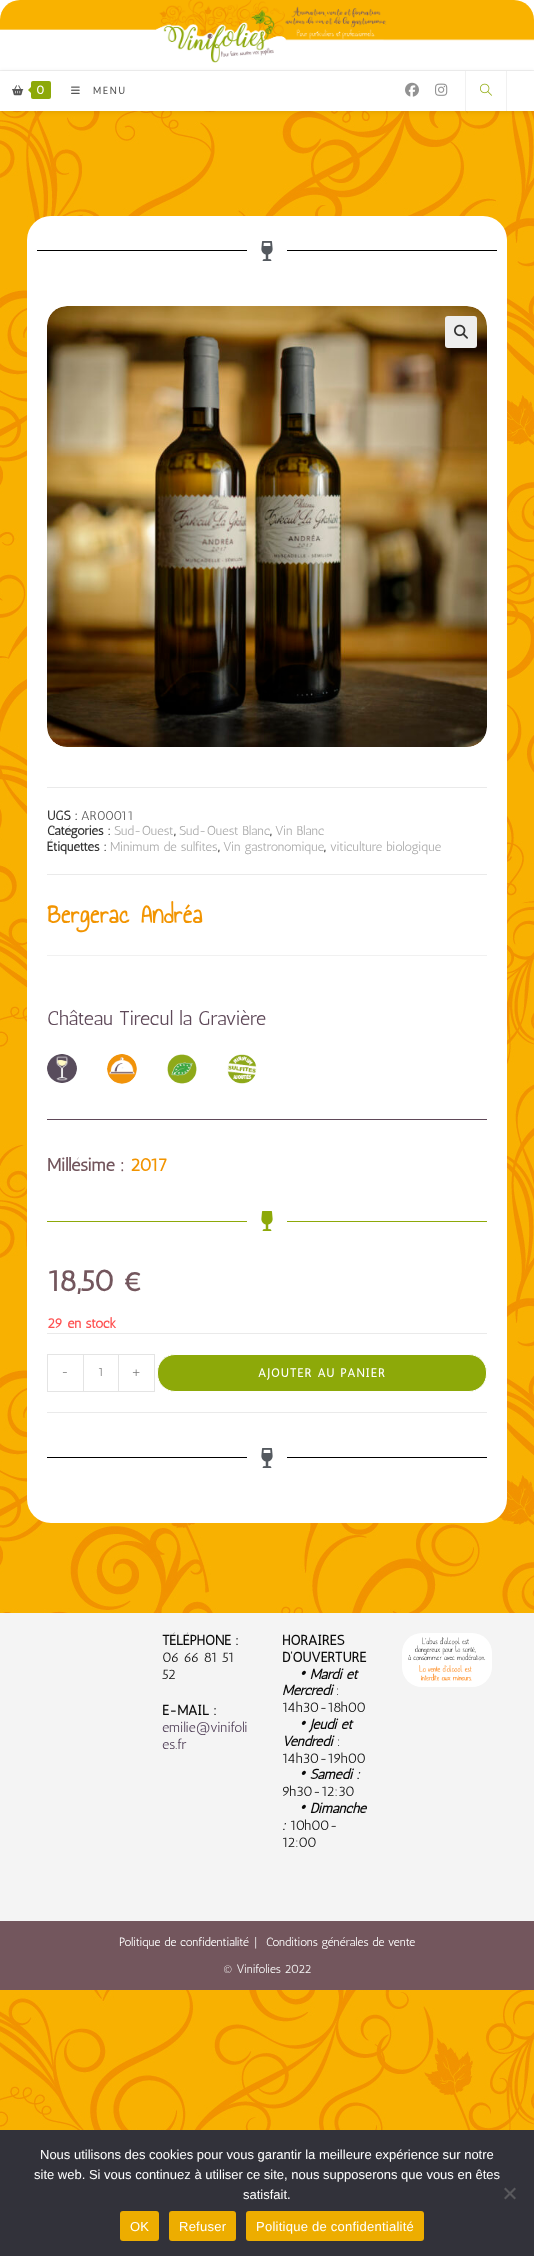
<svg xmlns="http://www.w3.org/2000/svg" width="534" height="2256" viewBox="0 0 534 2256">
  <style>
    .t1 { font: bold 12px Antic; letter-spacing: 2px; fill: #fff; }
    .t2 { font: bold 10px Antic; letter-spacing: 2px; fill: #555; }
    .t3 { font: bold 13px Antic; fill: #333; }
    .t4 { font: 13px Antic; fill: #555; }
    .t5 { font: 13px Antic; fill: #ababab; }
    .t6 { font: bold 28px Annie Use Your Telescope; letter-spacing: 0.6px; fill: #f29400; }
    .t7 { font: 20px Antic; fill: #5f4959; }
    .t8 { font: bold 18px Antic; fill: #73565d; }
    .t9 { font: bold 18px Antic; fill: #f29400; }
    .t10 { font: bold 30px Antic; fill: #73565d; }
    .t11 { font: bold 14px Antic; fill: #fe5252; }
    .t12 { font: 13px Antic; fill: #777; }
    .t13 { font: 12px Antic; fill: #777; }
    .t14 { font: bold 12px Antic; letter-spacing: 1.25px; fill: #fff; }
    .t15 { font: bold 14px Antic; fill: #0a0a0a; }
    .t16 { font: 14px Antic; fill: #0a0a0a; }
    .t17 { font: 14px Antic; fill: #54435b; }
    .t18 { font: italic bold 14px Antic; fill: #0a0a0a; }
    .t19 { font: 12px Antic; fill: #fff; }
    .t20 { font: 12px Antic; fill: #f7f7f7; }
    .t21 { font: 13px Liberation Sans; fill: #fff; }
    .t22 { font: 13px Liberation Sans; letter-spacing: 0.25px; fill: #fff; }
  </style>
  <rect width="100%" height="100%" fill="#fff"/>
  <image x="0" y="111" width="534" height="2019" href="images/1.png"/>
  <rect x="0" y="70" width="534" height="1" fill="#f1f1f1"/>
  <image x="0" y="0" width="534" height="63" href="images/2.png"/>
  <rect x="0" y="72" width="534" height="40" fill="#0000001a" filter="blur(2.5px)"/>
  <rect x="0" y="71" width="534" height="40" fill="#fff"/>
  <image x="12" y="85" width="12" height="11" href="images/3.png"/>
  <rect x="31" y="81" width="20" height="18" rx="2" fill="#8da909"/>
  <path d="M33 85V95L28 90Z" fill="#8da909"/>
  <text x="36" y="94" class="t1">0</text>
  <image x="71" y="86" width="9" height="8" href="images/4.png"/>
  <text x="93" y="94" class="t2">MENU</text>
  <image x="405" y="82" width="14" height="15" href="images/5.png"/>
  <image x="435" y="83" width="13" height="13" href="images/6.png"/>
  <rect x="506" y="71" width="1" height="40" fill="#f1f1f1"/>
  <rect x="465" y="71" width="1" height="40" fill="#f1f1f1"/>
  <image x="480" y="83" width="12" height="13" href="images/7.png"/>
  <rect x="27" y="216" width="480" height="1307" rx="24" fill="#fff"/>
  <rect x="37" y="250" width="210" height="1" fill="#000"/>
  <image x="261" y="241" width="12" height="20" href="images/8.png"/>
  <rect x="287" y="250" width="210" height="1" fill="#000"/>
  <image x="47" y="306" width="440" height="441" href="images/9.png"/>
  <rect x="445" y="316" width="32" height="32" rx="3" fill="#eee"/>
  <image x="454" y="324" width="14" height="15" href="images/10.png"/>
  <rect x="47" y="787" width="440" height="1" fill="#eaeaea"/>
  <rect x="47" y="874" width="440" height="1" fill="#eaeaea"/>
  <text x="47" y="820" class="t3">UGS :</text>
  <text x="81" y="820" class="t4">AR00011</text>
  <text x="47" y="835" class="t3">Catégories :</text>
  <text x="114" y="835" class="t5">Sud-Ouest</text>
  <text x="179" y="835" class="t5">Sud-Ouest Blanc</text>
  <text x="275" y="835" class="t5">Vin Blanc</text>
  <text x="174" y="835" class="t3">,</text>
  <text x="270" y="835" class="t3">,</text>
  <text x="47" y="851" class="t3">Étiquettes :</text>
  <text x="110" y="851" class="t5">Minimum de sulfites</text>
  <text x="218" y="851" class="t3">,</text>
  <text x="223" y="851" class="t5">Vin gastronomique</text>
  <text x="324" y="851" class="t3">,</text>
  <text x="330" y="851" class="t5">viticulture biologique</text>
  <rect x="47" y="955" width="440" height="1" fill="#f1f1f1"/>
  <text x="47" y="923" class="t6">Bergerac Andréa</text>
  <text x="47" y="1025" class="t7">Château Tirecul la Gravière</text>
  <image x="47" y="1054" width="30" height="29" href="images/11.png"/>
  <image x="107" y="1054" width="30" height="30" href="images/12.png"/>
  <image x="167" y="1054" width="30" height="30" href="images/13.png"/>
  <image x="227" y="1054" width="30" height="30" href="images/14.png"/>
  <rect x="47" y="1119" width="440" height="1" fill="#5f4959"/>
  <text x="47" y="1171" class="t8">Millésime :</text>
  <text x="130" y="1171" class="t9">2017</text>
  <rect x="47" y="1221" width="200" height="1" fill="#8da909"/>
  <image x="261" y="1211" width="12" height="20" href="images/15.png"/>
  <rect x="287" y="1221" width="200" height="1" fill="#8da909"/>
  <text x="47" y="1291" class="t10">18,50 €</text>
  <text x="47" y="1328" class="t11">29 en stock</text>
  <rect x="47" y="1333" width="440" height="1" fill="#eaeaea"/>
  <rect x="47" y="1412" width="440" height="1" fill="#eaeaea"/>
  <rect x="47" y="1354" width="36" height="1" fill="#e4e4e4"/>
  <rect x="47" y="1391" width="36" height="1" fill="#e4e4e4"/>
  <rect x="47" y="1354" width="1" height="38" fill="#e4e4e4"/>
  <text x="61" y="1376" class="t12">-</text>
  <rect x="83.5" y="1354.5" width="35" height="37" fill="none" stroke="#e4e4e4"/>
  <text x="98" y="1376" class="t13">1</text>
  <rect x="119" y="1354" width="36" height="1" fill="#e4e4e4"/>
  <rect x="154" y="1354" width="1" height="38" fill="#e4e4e4"/>
  <rect x="119" y="1391" width="36" height="1" fill="#e4e4e4"/>
  <text x="131" y="1376" class="t12">+</text>
  <rect x="157.5" y="1354.5" width="329" height="37" rx="17.5" fill="#8da909" stroke="#fff"/>
  <text x="258" y="1377" class="t14">AJOUTER AU PANIER</text>
  <rect x="47" y="1457" width="200" height="1" fill="#000"/>
  <image x="261" y="1448" width="12" height="20" href="images/8.png"/>
  <rect x="287" y="1457" width="200" height="1" fill="#000"/>
  <rect x="0" y="1613" width="534" height="308" fill="#f4f4f4"/>
  <text x="162" y="1645" class="t15">TÉLÉPHONE :</text>
  <text x="162" y="1662" class="t16">06 66 81 51</text>
  <text x="162" y="1679" class="t16">52</text>
  <text x="162" y="1715" class="t15">E-MAIL :</text>
  <text x="162" y="1732" class="t17">emilie@vinifoli</text>
  <text x="162" y="1749" class="t17">es.fr</text>
  <text x="282" y="1645" class="t15">HORAIRES</text>
  <text x="282" y="1662" class="t15">D’OUVERTURE</text>
  <text x="299" y="1679" class="t18">• Mardi et</text>
  <text x="282" y="1695" class="t18">Mercredi</text>
  <text x="336" y="1695" class="t16">:</text>
  <text x="282" y="1712" class="t16">14h30-18h00</text>
  <text x="299" y="1729" class="t18">• Jeudi et</text>
  <text x="282" y="1746" class="t18">Vendredi</text>
  <text x="337" y="1746" class="t16">:</text>
  <text x="282" y="1763" class="t16">14h30-19h00</text>
  <text x="299" y="1779" class="t18">• Samedi :</text>
  <text x="282" y="1796" class="t16">9h30-12:30</text>
  <text x="299" y="1813" class="t18">• Dimanche</text>
  <text x="282" y="1830" class="t18">:</text>
  <text x="290" y="1830" class="t16">10h00-</text>
  <text x="282" y="1847" class="t16">12:00</text>
  <image x="402" y="1633" width="90" height="54" href="images/16.png"/>
  <rect x="0" y="1921" width="534" height="69" fill="#73565d"/>
  <text x="119" y="1946" class="t19">Politique de confidentialité</text>
  <text x="254" y="1946" class="t20">|</text>
  <text x="266" y="1946" class="t19">Conditions générales de vente</text>
  <text x="223" y="1973" class="t20">© Vinifolies 2022</text>
  <rect x="0" y="2130" width="534" height="126" fill="#32323a"/>
  <text x="40" y="2159" class="t21">Nous utilisons des cookies pour vous garantir la meilleure expérience sur notre</text>
  <text x="34" y="2179" class="t21">site web. Si vous continuez à utiliser ce site, nous supposerons que vous en êtes</text>
  <text x="243" y="2199" class="t21">satisfait.</text>
  <path d="M514.5 2187.5L516 2189L505.5 2199.5L504 2198Z" fill="#59595d"/>
  <path d="M504 2189L505.5 2187.5L516 2198L514.5 2199.5Z" fill="#59595d"/>
  <rect x="120" y="2211" width="39" height="30" rx="3" fill="#edad00"/>
  <text x="130" y="2231" class="t22">OK</text>
  <rect x="169" y="2211" width="67" height="30" rx="3" fill="#edad00"/>
  <text x="179" y="2231" class="t22">Refuser</text>
  <rect x="246" y="2211" width="178" height="30" rx="3" fill="#edad00"/>
  <text x="256" y="2231" class="t22">Politique de confidentialité</text>
</svg>
